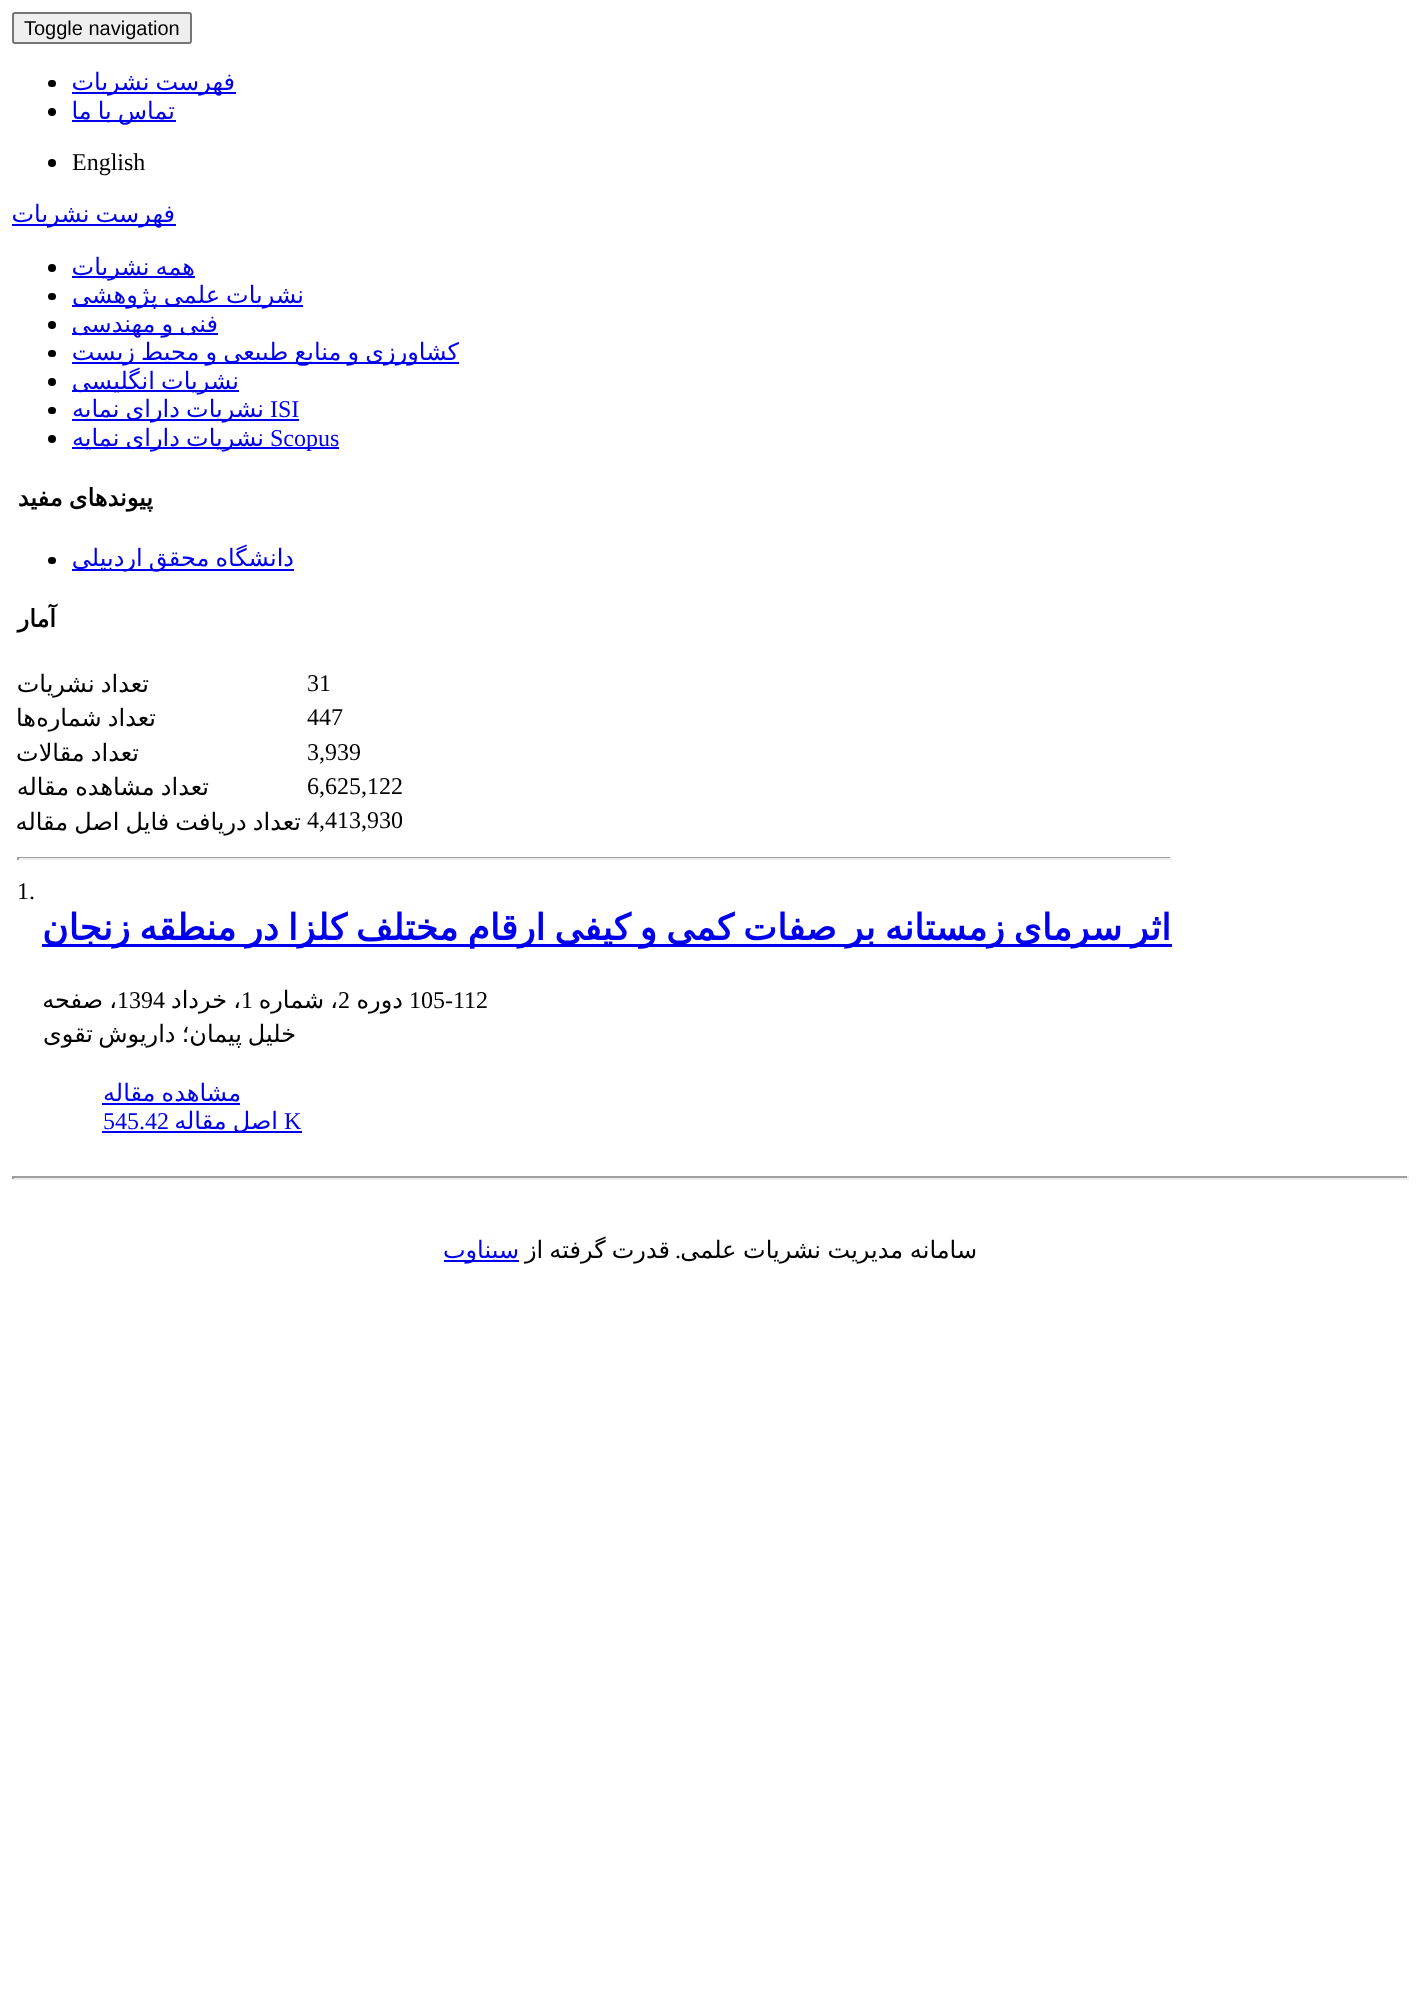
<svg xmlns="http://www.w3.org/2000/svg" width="1420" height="1990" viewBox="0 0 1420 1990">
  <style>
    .t1 { font: 20px Liberation Sans; fill: #000; }
    .t2 { font: 24px DejaVu Sans; direction: rtl; fill: #00e; }
    .t3 { font: 24px Liberation Serif; fill: #000; }
    .t4 { font: 24px Liberation Serif; fill: #00e; }
    .t5 { font: bold 24px DejaVu Sans; direction: rtl; fill: #000; }
    .t6 { font: 24px DejaVu Sans; direction: rtl; fill: #000; }
    .t7 { font: bold 36px DejaVu Sans; direction: rtl; fill: #00e; }
    .t8 { font: 24px Liberation Serif; direction: rtl; fill: #000; }
  </style>
  <rect width="100%" height="100%" fill="#fff"/>
  <rect x="13" y="13" width="178" height="30" rx="2" fill="#efefef" stroke="#767676" stroke-width="2"/>
  <text x="24" y="35" class="t1">Toggle navigation</text>
  <rect x="72" y="92" width="164" height="2" fill="#00e"/>
  <text x="235" y="90" word-spacing="-1.5" class="t2">فهرست نشریات</text>
  <rect x="48" y="80" width="8" height="7" rx="3.5" fill="#000"/>
  <rect x="72" y="120" width="104" height="2" fill="#00e"/>
  <text x="175" y="119" word-spacing="-1.5" class="t2">تماس با ما</text>
  <circle cx="52" cy="112" r="4" fill="#000"/>
  <text x="72" y="170" class="t3">English</text>
  <circle cx="52" cy="163" r="4" fill="#000"/>
  <rect x="12" y="224" width="164" height="2" fill="#00e"/>
  <text x="175" y="222" word-spacing="-1.5" class="t2">فهرست نشریات</text>
  <rect x="72" y="276" width="123" height="2" fill="#00e"/>
  <text x="195" y="275" word-spacing="-1.5" class="t2">همه نشریات</text>
  <circle cx="52" cy="268" r="4" fill="#000"/>
  <rect x="72" y="305" width="231" height="2" fill="#00e"/>
  <text x="304" y="303" word-spacing="-1.5" class="t2">نشریات علمی پژوهشی</text>
  <rect x="48" y="293" width="8" height="7" rx="3.5" fill="#000"/>
  <rect x="72" y="333" width="146" height="2" fill="#00e"/>
  <text x="218" y="332" word-spacing="-1.5" class="t2">فنی و مهندسی</text>
  <circle cx="52" cy="325" r="4" fill="#000"/>
  <rect x="72" y="362" width="387" height="2" fill="#00e"/>
  <text x="459" y="360" word-spacing="-1.5" class="t2">کشاورزی و منابع طبیعی و محیط زیست</text>
  <rect x="48" y="350" width="8" height="7" rx="3.5" fill="#000"/>
  <rect x="72" y="390" width="167" height="2" fill="#00e"/>
  <text x="239" y="389" word-spacing="-1.5" class="t2">نشریات انگلیسی</text>
  <circle cx="52" cy="382" r="4" fill="#000"/>
  <text x="270" y="417" class="t4">ISI</text>
  <rect x="72" y="419" width="192" height="2" fill="#00e"/>
  <text x="264" y="417" word-spacing="-1.5" class="t2">نشریات دارای نمایه</text>
  <rect x="264" y="419" width="35" height="2" fill="#00e"/>
  <rect x="48" y="407" width="8" height="7" rx="3.5" fill="#000"/>
  <rect x="264" y="447" width="75" height="2" fill="#00e"/>
  <text x="270" y="446" class="t4">Scopus</text>
  <rect x="72" y="447" width="192" height="2" fill="#00e"/>
  <text x="264" y="446" word-spacing="-1.5" class="t2">نشریات دارای نمایه</text>
  <circle cx="52" cy="439" r="4" fill="#000"/>
  <text x="153" y="506" word-spacing="-1.5" class="t5">پیوندهای مفید</text>
  <rect x="72" y="569" width="222" height="2" fill="#00e"/>
  <text x="294" y="566" word-spacing="-1.5" class="t2">دانشگاه محقق اردبیلی</text>
  <rect x="48" y="557" width="8" height="7" rx="3.5" fill="#000"/>
  <text x="56" y="627" class="t5">آمار</text>
  <text x="307" y="691" class="t3">31</text>
  <text x="149" y="692" word-spacing="-1.5" class="t6">تعداد نشریات</text>
  <text x="307" y="725" class="t3">447</text>
  <text x="156" y="726" word-spacing="-1.5" class="t6">تعداد شماره</text>
  <text x="36" y="726" class="t6">ها</text>
  <text x="307" y="760" class="t3">3,939</text>
  <text x="139" y="761" word-spacing="-1.5" class="t6">تعداد مقالات</text>
  <text x="307" y="794" class="t3">6,625,122</text>
  <text x="209" y="795" word-spacing="-1.5" class="t6">تعداد مشاهده مقاله</text>
  <text x="301" y="830" word-spacing="-1.5" class="t6">تعداد دریافت فایل اصل مقاله</text>
  <text x="307" y="828" class="t3">4,413,930</text>
  <rect x="17" y="857" width="1155" height="1" fill="#9f9f9f"/>
  <rect x="1170" y="857" width="2" height="3" fill="#eee"/>
  <rect x="17" y="858" width="1155" height="2" fill="#eee"/>
  <rect x="17" y="857" width="2" height="3" fill="#9f9f9f"/>
  <text x="17" y="899" class="t3">1.</text>
  <rect x="42" y="944" width="1130" height="3" fill="#00e"/>
  <text x="1171" y="940" word-spacing="-2.4" class="t7">اثر سرمای زمستانه بر صفات کمی و کیفی ارقام مختلف کلزا در منطقه زنجان</text>
  <text x="409" y="1008" class="t3">105-112</text>
  <text x="403" y="1008" class="t6">دوره</text>
  <text x="338" y="1008" class="t3">2</text>
  <text x="338" y="1008" word-spacing="-1.5" class="t6">، شماره</text>
  <text x="241" y="1008" class="t3">1</text>
  <text x="241" y="1008" word-spacing="-1.5" class="t6">، خرداد</text>
  <text x="117" y="1008" class="t3">1394</text>
  <text x="117" y="1008" word-spacing="-1.5" class="t6">، صفحه</text>
  <text x="296" y="1042" class="t6">خلیل</text>
  <text x="242" y="1042" word-spacing="-1.5" class="t6">پیمان؛ داریوش</text>
  <text x="93" y="1042" class="t6">تقوی</text>
  <text x="241" y="1101" word-spacing="-1.5" class="t2">مشاهده مقاله</text>
  <rect x="102" y="1103" width="138" height="2" fill="#00e"/>
  <text x="284" y="1129" class="t4">K</text>
  <rect x="102" y="1131" width="200" height="2" fill="#00e"/>
  <text x="278" y="1129" word-spacing="-1.5" class="t2">اصل مقاله</text>
  <text x="103" y="1129" class="t4">545.42</text>
  <rect x="12" y="1176" width="1397" height="2" fill="#9f9f9f"/>
  <rect x="1407" y="1176" width="2" height="3" fill="#eee"/>
  <rect x="12" y="1178" width="1397" height="2" fill="#eee"/>
  <rect x="12" y="1176" width="2" height="3" fill="#9f9f9f"/>
  <text x="977" y="1258" word-spacing="-1" class="t6">سامانه مدیریت نشریات علمی</text>
  <text x="681" y="1258" class="t8">.</text>
  <text x="670" y="1258" word-spacing="-1.5" class="t6">قدرت گرفته از</text>
  <rect x="444" y="1260" width="75" height="2" fill="#00e"/>
  <text x="519" y="1258" class="t2">سیناوب</text>
</svg>
